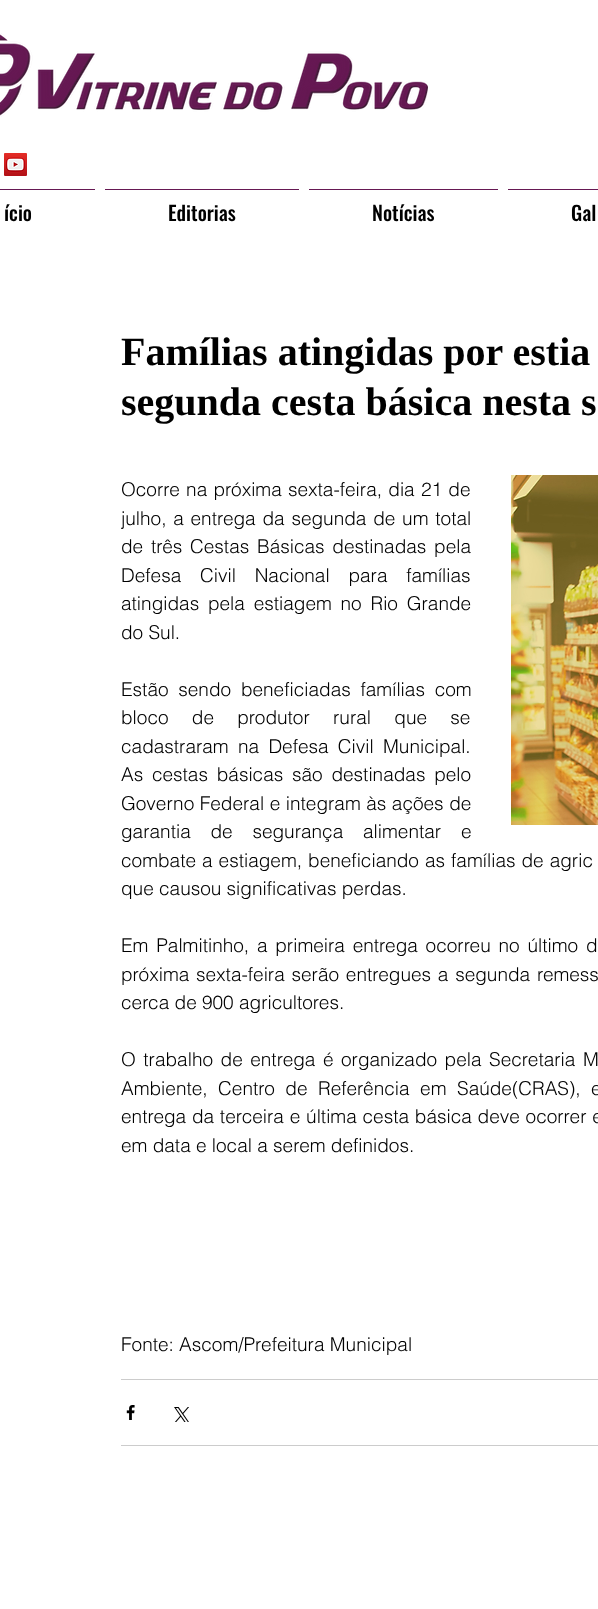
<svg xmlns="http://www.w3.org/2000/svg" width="598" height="1609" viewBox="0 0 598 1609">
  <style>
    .t1 { font: 500 20px Oswald; fill: #000; }
    .t2 { font: bold 40px Liberation Serif; fill: #000; }
    .t3 { font: 300 19px helvetica; fill: #000; }
  </style>
  <rect width="100%" height="100%" fill="#fff"/>
  <image x="0" y="33" width="428" height="84" href="images/1.png"/>
  <image x="4" y="153" width="23" height="23" href="images/2.png"/>
  <rect x="0" y="189" width="95" height="1" fill="#661853"/>
  <text x="4" y="221" class="t1">ício</text>
  <rect x="105" y="189" width="194" height="1" fill="#661853"/>
  <text x="168" y="221" class="t1">Editorias</text>
  <rect x="309" y="189" width="189" height="1" fill="#661853"/>
  <text x="372" y="221" class="t1">Notícias</text>
  <rect x="508" y="189" width="90" height="1" fill="#661853"/>
  <text x="571" y="221" class="t1">Gal</text>
  <text x="121" y="365" class="t2">Famílias atingidas por estia</text>
  <text x="121" y="415" class="t2">segunda cesta básica nesta s</text>
  <text x="121" y="496" word-spacing="1" class="t3">Ocorre na próxima sexta-feira, dia 21 de</text>
  <text x="121" y="525" word-spacing="1.5" class="t3">julho, a entrega da segunda de um total</text>
  <text x="121" y="553" word-spacing="2.5" class="t3">de três Cestas Básicas destinadas pela</text>
  <text x="121" y="582" word-spacing="13.5" class="t3">Defesa Civil Nacional para famílias</text>
  <text x="121" y="610" word-spacing="3.5" class="t3">atingidas pela estiagem no Rio Grande</text>
  <text x="121" y="639" class="t3">do Sul.</text>
  <image x="511" y="475" width="87" height="350" href="images/3.png"/>
  <text x="121" y="696" word-spacing="4.5" class="t3">Estão sendo beneficiadas famílias com</text>
  <text x="121" y="724" word-spacing="18" class="t3">bloco de produtor rural que se</text>
  <text x="121" y="753" word-spacing="4" class="t3">cadastraram na Defesa Civil Municipal.</text>
  <text x="121" y="781" word-spacing="3.5" class="t3">As cestas básicas são destinadas pelo</text>
  <text x="121" y="810" word-spacing="0.25" class="t3">Governo Federal e integram às ações de</text>
  <text x="121" y="838" word-spacing="14.5" class="t3">garantia de segurança alimentar e</text>
  <text x="121" y="867" word-spacing="0.75" class="t3">combate a estiagem, beneficiando as famílias de agric</text>
  <text x="121" y="895" class="t3">que causou significativas perdas.</text>
  <text x="121" y="952" word-spacing="2.5" class="t3">Em Palmitinho, a primeira entrega ocorreu no último d</text>
  <text x="121" y="981" word-spacing="1.5" class="t3">próxima sexta-feira serão entregues a segunda remess</text>
  <text x="121" y="1009" class="t3">cerca de 900 agricultores.</text>
  <text x="121" y="1066" word-spacing="2.25" class="t3">O trabalho de entrega é organizado pela Secretaria M</text>
  <text x="121" y="1095" word-spacing="5.25" class="t3">Ambiente, Centro de Referência em Saúde(CRAS), e</text>
  <text x="121" y="1123" word-spacing="0.5" class="t3">entrega da terceira e última cesta básica deve ocorrer e</text>
  <text x="121" y="1152" class="t3">em data e local a serem definidos.</text>
  <text x="121" y="1351" class="t3">Fonte: Ascom/Prefeitura Municipal</text>
  <rect x="121" y="1379" width="477" height="1" fill="#ccc"/>
  <image x="126" y="1405" width="9" height="15" href="images/4.png"/>
  <image x="174" y="1407" width="15" height="15" href="images/5.png"/>
  <rect x="121" y="1445" width="477" height="1" fill="#ccc"/>
</svg>
